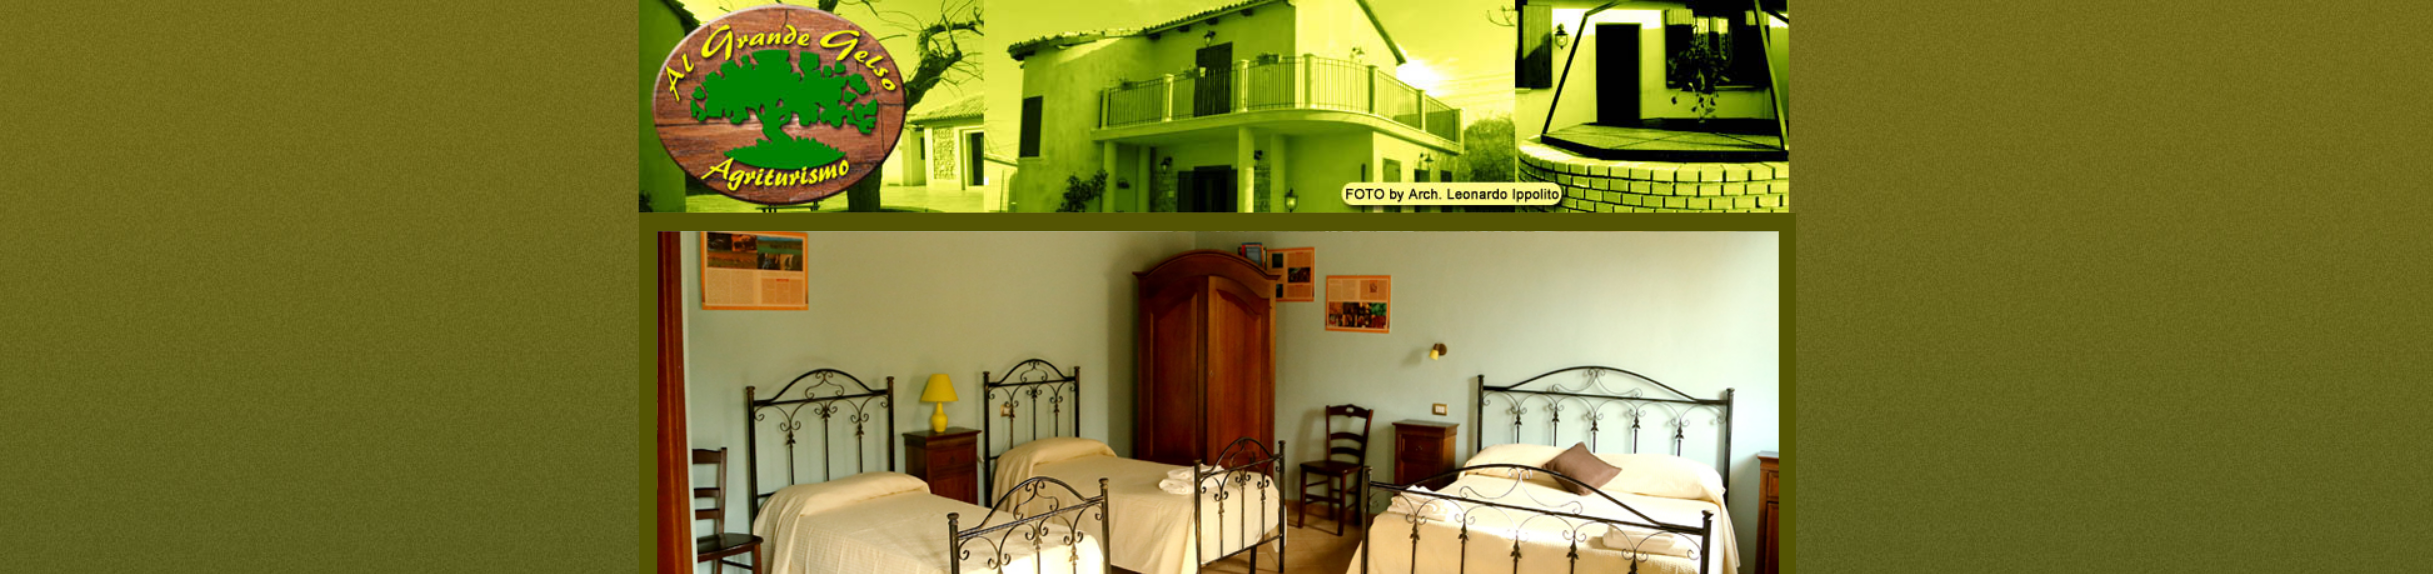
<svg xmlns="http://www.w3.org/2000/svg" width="2433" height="574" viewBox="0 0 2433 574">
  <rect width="100%" height="100%" fill="#fff"/>
  <image x="0" y="0" width="2433" height="574" href="images/1.png"/>
  <image x="638" y="0" width="1151" height="213" href="images/2.png"/>
  <rect x="639" y="213" width="1157" height="361" fill="#545503"/>
  <image x="657" y="231" width="1121" height="343" href="images/3.png"/>
  <image x="657" y="231" width="1122" height="343" href="images/4.png"/>
</svg>
